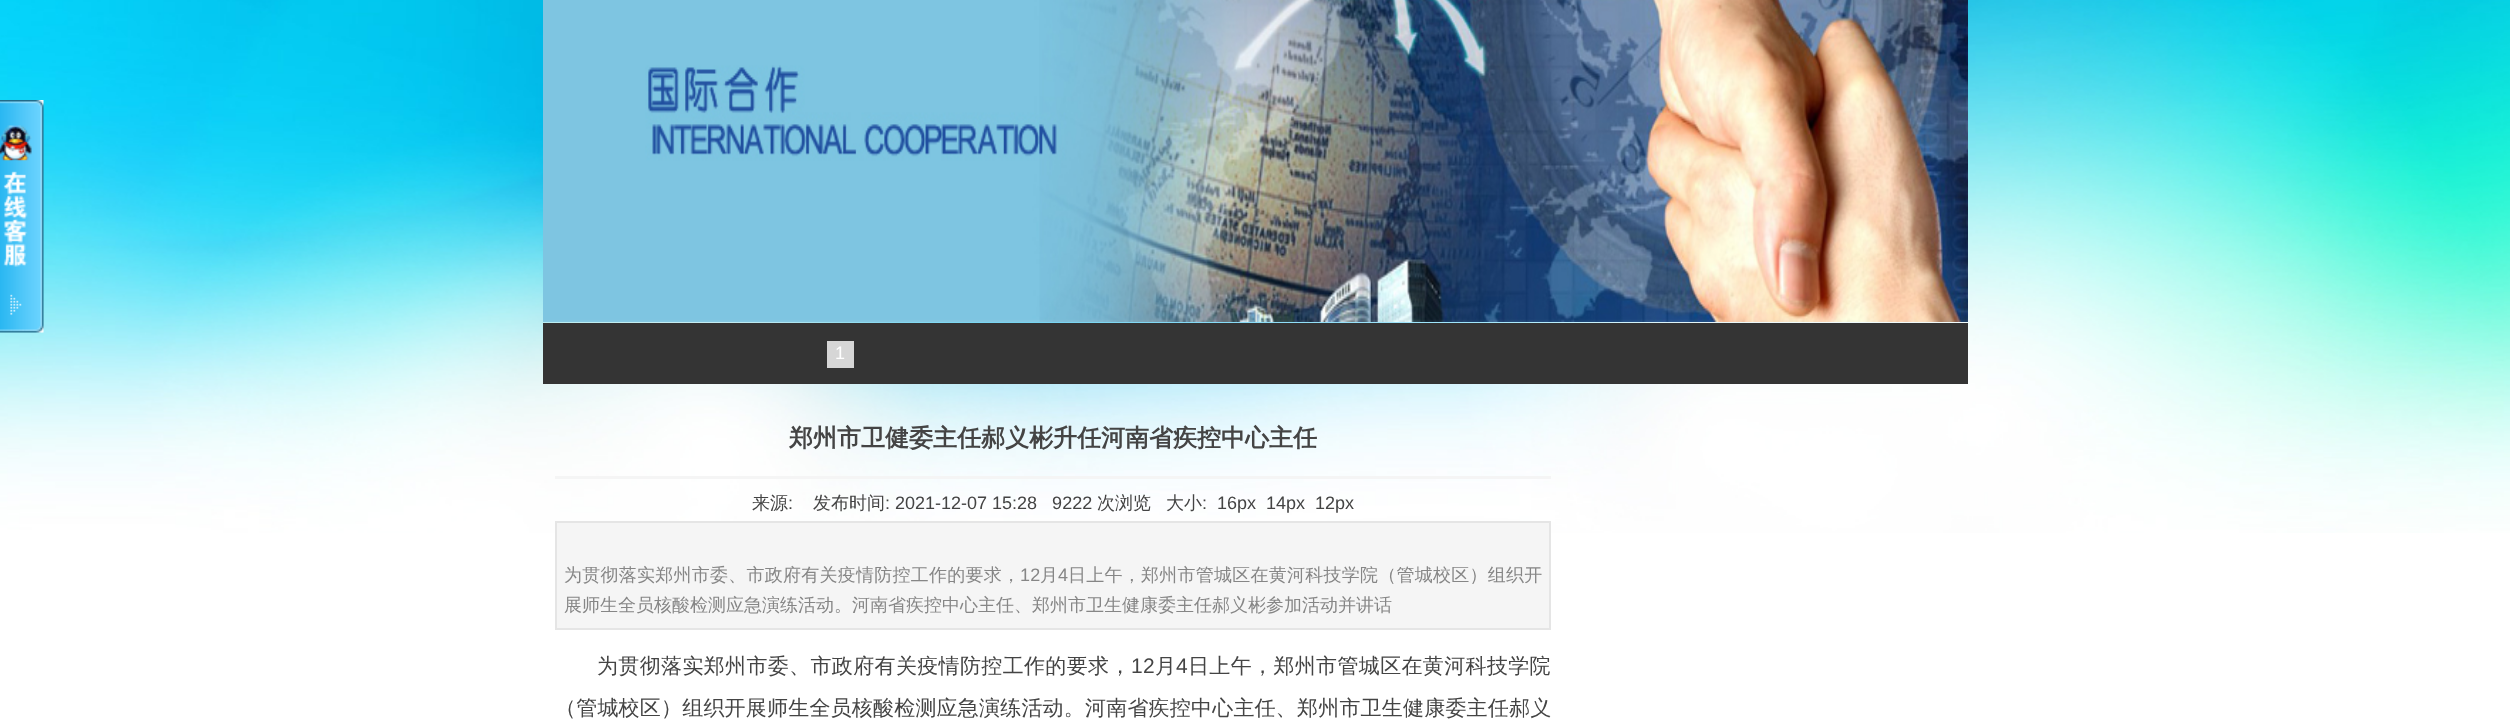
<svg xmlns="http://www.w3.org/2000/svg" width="2510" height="727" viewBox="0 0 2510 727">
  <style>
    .t1 { font: 18px Liberation Sans; fill: #fff; }
    .t2 { font: bold 24px WenQuanYi Zen Hei; fill: #444; }
    .t3 { font: 500 18px WenQuanYi Zen Hei; fill: #444; }
    .t4 { font: 18px Liberation Sans; fill: #444; }
    .t5 { font: 500 18px WenQuanYi Zen Hei; letter-spacing: 0.25px; fill: #868686; }
    .t6 { font: 18px Liberation Sans; letter-spacing: 0.25px; fill: #868686; }
    .t7 { font: 500 18px WenQuanYi Zen Hei; fill: #868686; }
    .t8 { font: 500 21px WenQuanYi Zen Hei; letter-spacing: 0.35px; fill: #444; }
    .t9 { font: 21px Liberation Sans; letter-spacing: 0.35px; fill: #444; }
    .t10 { font: 500 21px WenQuanYi Zen Hei; letter-spacing: 0.2px; fill: #444; }
  </style>
  <rect width="100%" height="100%" fill="#fff"/>
  <image x="0" y="0" width="2510" height="533" href="images/1.png"/>
  <image x="0" y="100" width="44" height="233" href="images/2.png"/>
  <image x="543" y="0" width="1425" height="322" href="images/3.png"/>
  <rect x="543" y="323" width="1425" height="61" fill="#343434"/>
  <rect x="827" y="341" width="27" height="27" fill="#d6d6d6"/>
  <text x="835" y="359" class="t1">1</text>
  <rect x="555" y="476" width="996" height="3" fill="#f5f5f5"/>
  <text x="789" y="446" class="t2">郑州市卫健委主任郝义彬升任河南省疾控中心主任</text>
  <text x="752" y="509" class="t3">来源</text>
  <text x="788" y="509" class="t4">:</text>
  <text x="813" y="509" class="t3">发布时间</text>
  <text x="885" y="509" class="t4" xml:space="preserve">: 2021-12-07 15:28   9222</text>
  <text x="1097" y="509" class="t3">次浏览</text>
  <text x="1166" y="509" class="t3">大小</text>
  <text x="1202" y="509" class="t4">:</text>
  <text x="1217" y="509" class="t4">16px</text>
  <text x="1266" y="509" class="t4">14px</text>
  <text x="1315" y="509" class="t4">12px</text>
  <rect x="556" y="522" width="994" height="107" fill="#f5f5f5" stroke="#e5e5e5" stroke-width="2"/>
  <text x="564" y="581" class="t5">为贯彻落实郑州市委、市政府有关疫情防控工作的要求，</text>
  <text x="1020" y="581" class="t6">12</text>
  <text x="1040" y="581" class="t5">月</text>
  <text x="1058" y="581" class="t6">4</text>
  <text x="1068" y="581" class="t5">日上午，郑州市管城区在黄河科技学院（管城校区）组织开</text>
  <text x="564" y="611" class="t7">展师生全员核酸检测应急演练活动。河南省疾控中心主任、郑州市卫生健康委主任郝义彬参加活动并讲话</text>
  <text x="597" y="673" class="t8">为贯彻落实郑州市委、市政府有关疫情防控工作的要求，</text>
  <text x="1131" y="673" class="t9">12</text>
  <text x="1155" y="673" class="t8">月</text>
  <text x="1176" y="673" class="t9">4</text>
  <text x="1188" y="673" class="t8">日上午，郑州市管城区在黄河科技学院</text>
  <text x="555" y="715" class="t10">（管城校区）组织开展师生全员核酸检测应急演练活动。河南省疾控中心主任、郑州市卫生健康委主任郝义</text>
</svg>
